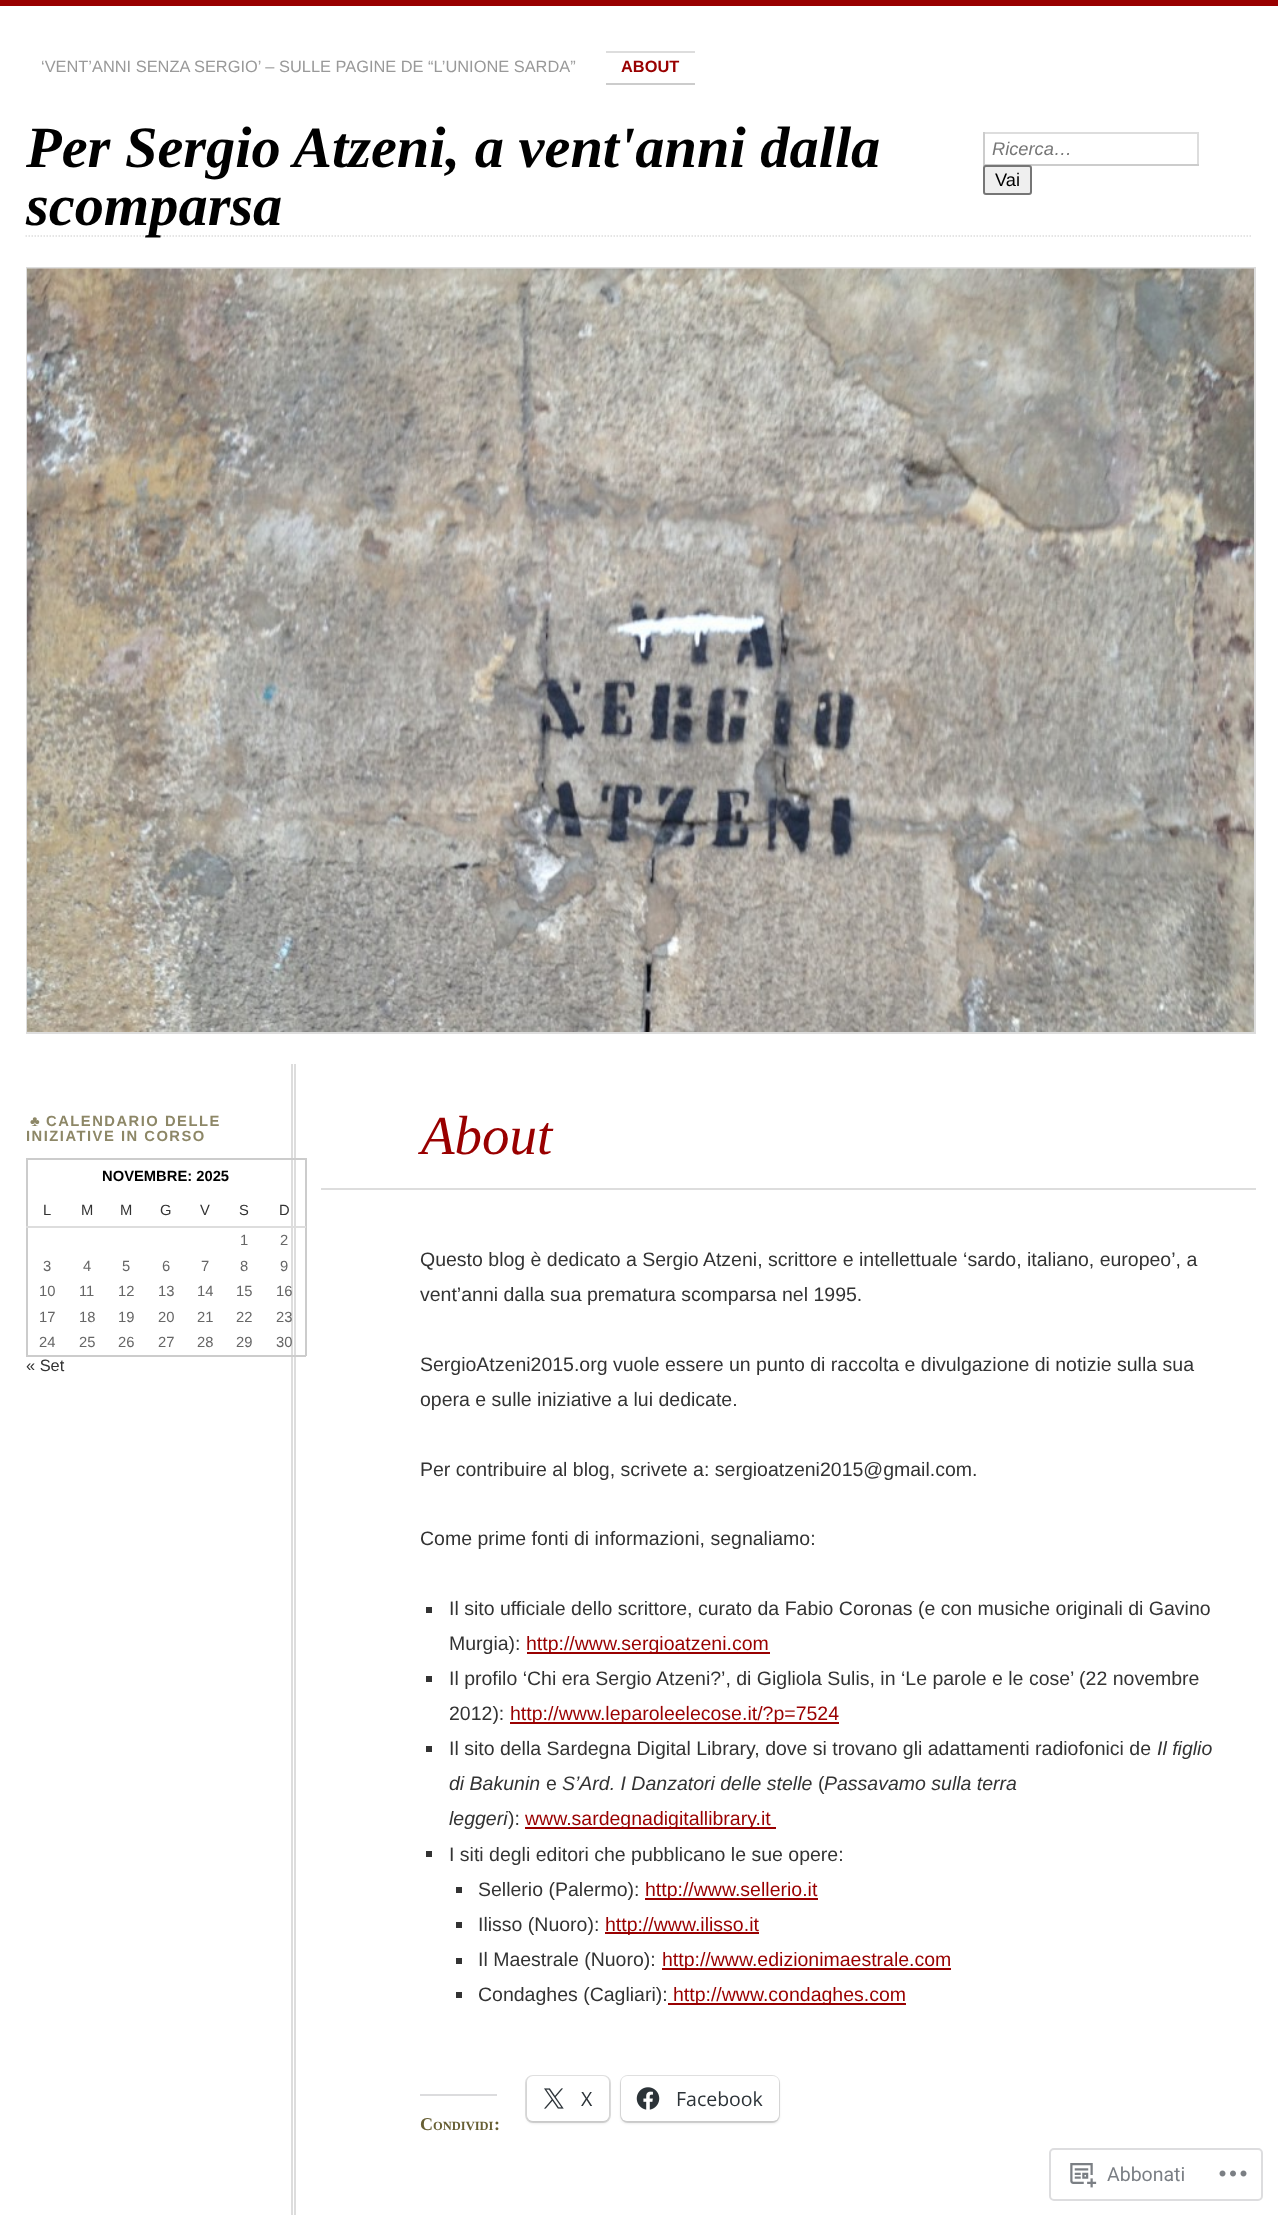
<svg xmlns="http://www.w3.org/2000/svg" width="1278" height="2215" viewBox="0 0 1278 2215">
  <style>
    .t1 { font: 16.4px Liberation Sans; fill: #999; }
    .t2 { font: bold 16.4px Liberation Sans; fill: #900; }
    .t3 { font: italic bold 58.4px Liberation Serif; fill: #000; }
    .t4 { font: italic 18.25px Liberation Sans; fill: #777; }
    .t5 { font: 18.25px Liberation Sans; fill: #000; }
    .t6 { font: bold 14.75px Liberation Sans; letter-spacing: 1.5px; fill: #8d8767; }
    .t7 { font: bold 14.75px Liberation Sans; fill: #000; }
    .t8 { font: 14.75px Liberation Sans; fill: #333; }
    .t9 { font: 14.75px Liberation Sans; fill: #666; }
    .t10 { font: 16.4px Liberation Sans; fill: #333; }
    .t11 { font: italic 55px Liberation Serif; fill: #900; }
    .t12 { font: 19.5px Liberation Sans; fill: #333; }
    .t13 { font: 19.5px Liberation Sans; fill: #900; }
    .t14 { font: italic 19.5px Liberation Sans; fill: #333; }
    .t15 { font: 19.5px Open Sans; fill: #2c3338; }
    .t16 { font: bold 18px Liberation Serif; fill: #675f34; }
    .t17 { font: bold 12.5px Liberation Serif; fill: #675f34; }
    .t18 { font: 19.5px Roboto; fill: #7b7f85; }
  </style>
  <rect width="100%" height="100%" fill="#fff"/>
  <rect x="0" y="0" width="1278" height="6" fill="#900"/>
  <text x="41" y="72" class="t1">‘VENT’ANNI SENZA SERGIO’ – SULLE PAGINE DE “L’UNIONE SARDA”</text>
  <rect x="606" y="51" width="89" height="2" fill="#ddd"/>
  <rect x="606" y="83" width="89" height="2" fill="#ccc"/>
  <text x="621" y="72" class="t2">ABOUT</text>
  <text x="26" y="167" class="t3">Per Sergio Atzeni, a vent'anni dalla</text>
  <path d="M25.5 236H1252.5" fill="none" stroke="#ddd" stroke-width="1.5" stroke-dasharray="1.5 1.5"/>
  <text x="26" y="225" class="t3">scomparsa</text>
  <rect x="983" y="132" width="216" height="2" fill="#ddd"/>
  <rect x="1197" y="132" width="2" height="33" fill="#ddd"/>
  <rect x="983" y="164" width="216" height="2" fill="#ccc"/>
  <rect x="983" y="132" width="2" height="33" fill="#ccc"/>
  <text x="992" y="155" class="t4">Ricerca…</text>
  <rect x="984" y="166" width="47" height="28" rx="2" fill="#efefef" stroke="#767676" stroke-width="2"/>
  <text x="995" y="186" class="t5">Vai</text>
  <rect x="27" y="268" width="1228" height="765" fill="none" stroke="#ddd" stroke-width="2"/>
  <image x="27" y="268" width="1227" height="764" href="images/1.png"/>
  <text x="30" y="1126" class="t6">♣</text>
  <text x="46" y="1126" class="t6">CALENDARIO DELLE</text>
  <text x="26" y="1141" class="t6">INIZIATIVE IN CORSO</text>
  <rect x="291" y="1064" width="2" height="1151" fill="#ddd"/>
  <rect x="294" y="1064" width="2" height="1151" fill="#ddd"/>
  <rect x="26" y="1158" width="280" height="2" fill="#ccc"/>
  <rect x="305" y="1158" width="2" height="198" fill="#ccc"/>
  <rect x="26" y="1355" width="280" height="2" fill="#ccc"/>
  <rect x="26" y="1158" width="2" height="198" fill="#ccc"/>
  <text x="102" y="1181" class="t7">NOVEMBRE: 2025</text>
  <text x="43" y="1215" class="t8">L</text>
  <text x="81" y="1215" class="t8">M</text>
  <text x="120" y="1215" class="t8">M</text>
  <text x="160" y="1215" class="t8">G</text>
  <text x="200" y="1215" class="t8">V</text>
  <text x="239" y="1215" class="t8">S</text>
  <rect x="26" y="1226" width="280" height="2" fill="#ddd"/>
  <text x="279" y="1215" class="t8">D</text>
  <text x="240" y="1245" class="t9">1</text>
  <text x="280" y="1245" class="t9">2</text>
  <text x="43" y="1271" class="t9">3</text>
  <text x="83" y="1271" class="t9">4</text>
  <text x="122" y="1271" class="t9">5</text>
  <text x="162" y="1271" class="t9">6</text>
  <text x="201" y="1271" class="t9">7</text>
  <text x="240" y="1271" class="t9">8</text>
  <text x="280" y="1271" class="t9">9</text>
  <text x="39" y="1296" class="t9">10</text>
  <text x="79" y="1296" class="t9">11</text>
  <text x="118" y="1296" class="t9">12</text>
  <text x="158" y="1296" class="t9">13</text>
  <text x="197" y="1296" class="t9">14</text>
  <text x="236" y="1296" class="t9">15</text>
  <text x="276" y="1296" class="t9">16</text>
  <text x="39" y="1322" class="t9">17</text>
  <text x="79" y="1322" class="t9">18</text>
  <text x="118" y="1322" class="t9">19</text>
  <text x="158" y="1322" class="t9">20</text>
  <text x="197" y="1322" class="t9">21</text>
  <text x="236" y="1322" class="t9">22</text>
  <text x="276" y="1322" class="t9">23</text>
  <text x="39" y="1347" class="t9">24</text>
  <text x="79" y="1347" class="t9">25</text>
  <text x="118" y="1347" class="t9">26</text>
  <text x="158" y="1347" class="t9">27</text>
  <text x="197" y="1347" class="t9">28</text>
  <text x="236" y="1347" class="t9">29</text>
  <text x="276" y="1347" class="t9">30</text>
  <text x="26" y="1371" class="t10">« Set</text>
  <rect x="321" y="1188" width="935" height="2" fill="#ddd"/>
  <text x="421" y="1154" class="t11">About</text>
  <text x="420" y="1266" class="t12">Questo blog è dedicato a Sergio Atzeni, scrittore e intellettuale ‘sardo, italiano, europeo’, a</text>
  <text x="420" y="1301" class="t12">vent’anni dalla sua prematura scomparsa nel 1995.</text>
  <text x="420" y="1371" class="t12">SergioAtzeni2015.org vuole essere un punto di raccolta e divulgazione di notizie sulla sua</text>
  <text x="420" y="1406" class="t12">opera e sulle iniziative a lui dedicate.</text>
  <text x="420" y="1476" class="t12">Per contribuire al blog, scrivete a: sergioatzeni2015@gmail.com.</text>
  <text x="420" y="1545" class="t12">Come prime fonti di informazioni, segnaliamo:</text>
  <rect x="426" y="1607" width="6" height="6" fill="#333"/>
  <text x="449" y="1615" class="t12">Il sito ufficiale dello scrittore, curato da Fabio Coronas (e con musiche originali di Gavino</text>
  <text x="449" y="1650" class="t12">Murgia):</text>
  <rect x="527" y="1652" width="243" height="2" fill="#900"/>
  <text x="526" y="1650" class="t13">http://www.sergioatzeni.com</text>
  <rect x="426" y="1676" width="6" height="6" fill="#333"/>
  <text x="449" y="1685" class="t12">Il profilo ‘Chi era Sergio Atzeni?’, di Gigliola Sulis, in ‘Le parole e le cose’ (22 novembre</text>
  <text x="449" y="1720" class="t12">2012):</text>
  <rect x="510" y="1722" width="329" height="2" fill="#900"/>
  <text x="510" y="1720" class="t13">http://www.leparoleelecose.it/?p=7524</text>
  <rect x="426" y="1746" width="6" height="6" fill="#333"/>
  <text x="449" y="1755" class="t12">Il sito della Sardegna Digital Library, dove si trovano gli adattamenti radiofonici de</text>
  <text x="1157" y="1755" class="t14">Il figlio</text>
  <text x="449" y="1790" class="t14">di Bakunin</text>
  <text x="546" y="1790" class="t12">e</text>
  <text x="562" y="1790" class="t14">S’Ard. I Danzatori delle stelle</text>
  <text x="818" y="1790" class="t12">(</text>
  <text x="824" y="1790" class="t14">Passavamo sulla terra</text>
  <text x="449" y="1825" class="t14">leggeri</text>
  <text x="508" y="1825" class="t12">):</text>
  <rect x="525" y="1827" width="251" height="2" fill="#900"/>
  <text x="525" y="1825" class="t13">www.sardegnadigitallibrary.it</text>
  <rect x="426" y="1851" width="6" height="6" fill="#333"/>
  <text x="449" y="1861" class="t12">I siti degli editori che pubblicano le sue opere:</text>
  <rect x="456" y="1887" width="6" height="6" fill="#333"/>
  <text x="478" y="1896" class="t12">Sellerio (Palermo):</text>
  <rect x="645" y="1898" width="173" height="2" fill="#900"/>
  <text x="645" y="1896" class="t13">http://www.sellerio.it</text>
  <rect x="456" y="1922" width="6" height="6" fill="#333"/>
  <text x="478" y="1931" class="t12">Ilisso (Nuoro):</text>
  <rect x="605" y="1932" width="154" height="2" fill="#900"/>
  <text x="605" y="1931" class="t13">http://www.ilisso.it</text>
  <rect x="456" y="1958" width="6" height="6" fill="#333"/>
  <text x="478" y="1966" class="t12">Il Maestrale (Nuoro):</text>
  <rect x="662" y="1968" width="289" height="2" fill="#900"/>
  <text x="662" y="1966" class="t13">http://www.edizionimaestrale.com</text>
  <rect x="456" y="1992" width="6" height="6" fill="#333"/>
  <text x="478" y="2001" class="t12">Condaghes (Cagliari):</text>
  <rect x="668" y="2003" width="238" height="2" fill="#900"/>
  <text x="673" y="2001" class="t13">http://www.condaghes.com</text>
  <rect x="526" y="2076" width="84" height="46" rx="7" fill="none" stroke="#e0e0e0" stroke-width="2"/>
  <rect x="527" y="2078" width="82" height="45" rx="6" fill="#0000001f" filter="blur(1.5px)"/>
  <rect x="527" y="2076" width="82" height="45" rx="6" fill="#fff"/>
  <image x="544" y="2088" width="20" height="21" href="images/2.png"/>
  <text x="581" y="2106" class="t15">X</text>
  <rect x="621" y="2076" width="158" height="46" rx="7" fill="none" stroke="#e0e0e0" stroke-width="2"/>
  <rect x="621" y="2078" width="158" height="45" rx="6" fill="#0000001f" filter="blur(1.5px)"/>
  <rect x="621" y="2076" width="158" height="45" rx="6" fill="#fff"/>
  <image x="636" y="2087" width="24" height="23" href="images/3.png"/>
  <text x="676" y="2106" class="t15">Facebook</text>
  <rect x="420" y="2094" width="77" height="2" fill="#dcdcde"/>
  <text x="420" y="2130" class="t16">C</text>
  <text x="433" y="2130" class="t17">ONDIVIDI</text>
  <text x="494" y="2130" class="t16">:</text>
  <rect x="1050" y="2149" width="212" height="51" rx="4" fill="none" stroke="#dddddf" stroke-width="2"/>
  <image x="1070" y="2163" width="27" height="25" href="images/4.png"/>
  <text x="1107" y="2181" class="t18">Abbonati</text>
  <image x="1219" y="2170" width="28" height="7" href="images/5.png"/>
</svg>
